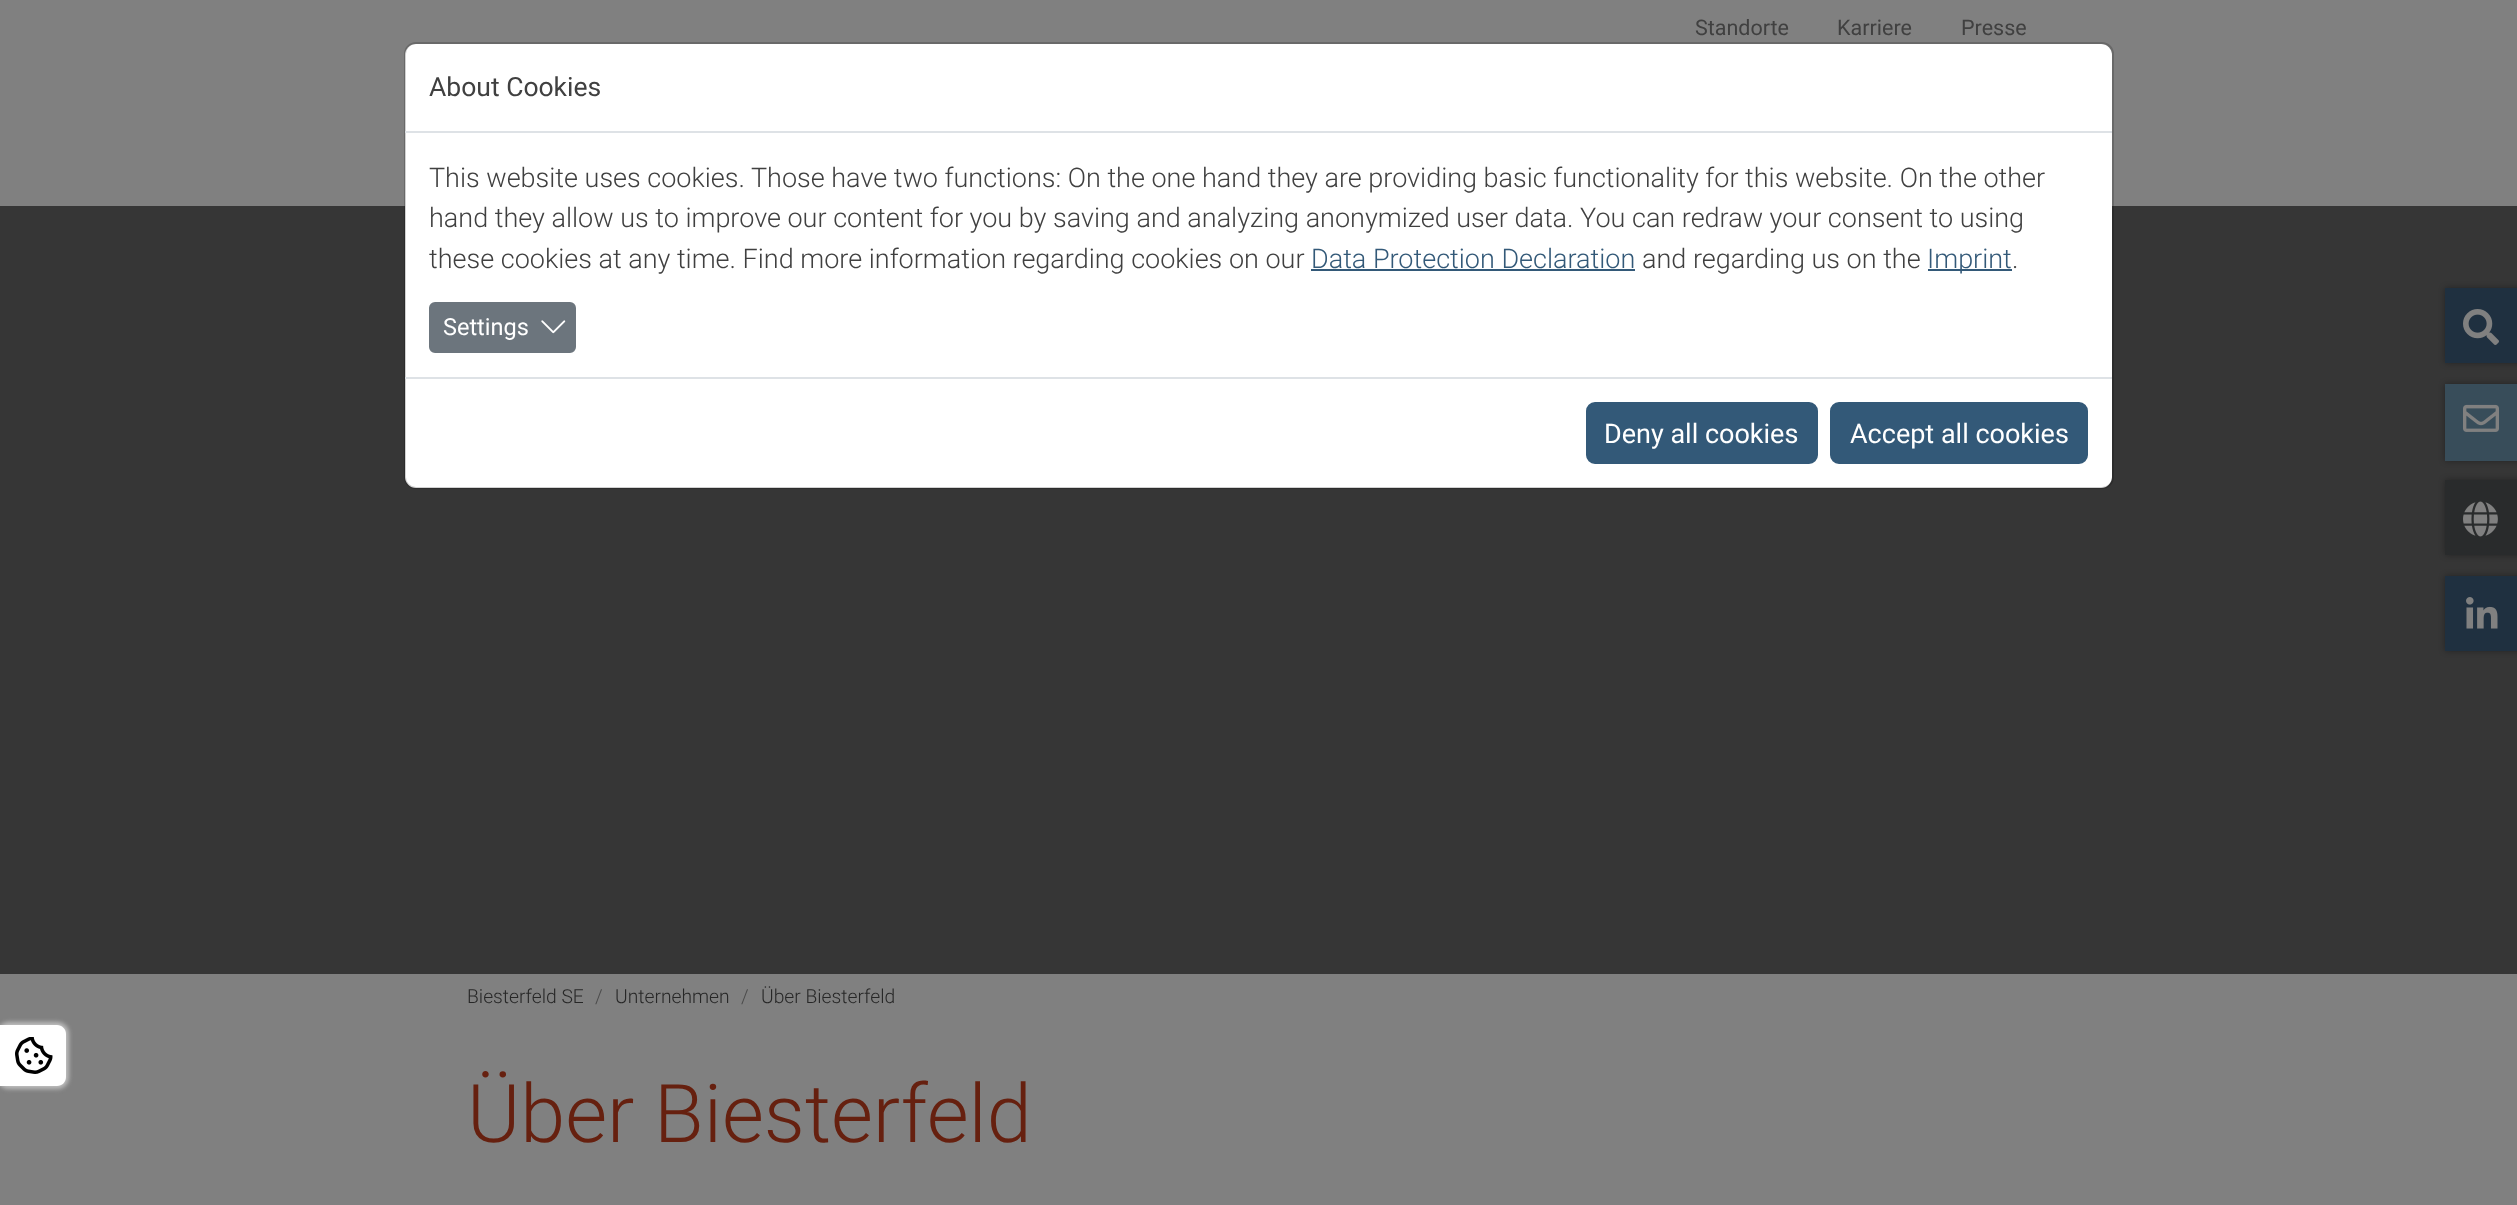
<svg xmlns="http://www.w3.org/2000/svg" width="2517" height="1205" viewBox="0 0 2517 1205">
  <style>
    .t1 { font: 21.5px Roboto; fill: #404040; }
    .t2 { font: 300 19.25px Roboto; fill: #272727; }
    .t3 { font: 300 19.25px Roboto; fill: #4a4a4a; }
    .t4 { font: 300 81px Roboto; fill: #66200f; }
    .t5 { font: 26.5px Roboto; fill: #404040; }
    .t6 { font: 300 27px Roboto; fill: #404040; }
    .t7 { font: 300 27px Roboto; fill: #335978; }
    .t8 { font: 23.5px Roboto; fill: #fff; }
    .t9 { font: 27px Roboto; fill: #fff; }
  </style>
  <rect width="100%" height="100%" fill="#808080"/>
  <text x="1695" y="35" class="t1">Standorte</text>
  <text x="1837" y="35" class="t1">Karriere</text>
  <text x="1961" y="35" class="t1">Presse</text>
  <rect x="0" y="206" width="2517" height="768" fill="#363636"/>
  <rect x="2445" y="288" width="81" height="75" fill="#00000057" filter="blur(3px)"/>
  <rect x="2445" y="288" width="72" height="75" fill="#1f3040"/>
  <image x="2463" y="309" width="36" height="36" href="images/1.png"/>
  <rect x="2445" y="384" width="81" height="77" fill="#00000057" filter="blur(3px)"/>
  <rect x="2445" y="384" width="72" height="77" fill="#384d5a"/>
  <image x="2463" y="404" width="36" height="28" href="images/2.png"/>
  <rect x="2445" y="480" width="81" height="75" fill="#00000057" filter="blur(3px)"/>
  <rect x="2445" y="480" width="72" height="75" fill="#292b2c"/>
  <image x="2463" y="501" width="35" height="36" href="images/3.png"/>
  <rect x="2445" y="576" width="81" height="75" fill="#00000057" filter="blur(3px)"/>
  <rect x="2445" y="576" width="72" height="75" fill="#1f3040"/>
  <image x="2466" y="597" width="32" height="32" href="images/4.png"/>
  <text x="467" y="1003" class="t2">Biesterfeld SE</text>
  <text x="595" y="1003" class="t3">/</text>
  <text x="615" y="1003" class="t2">Unternehmen</text>
  <text x="741" y="1003" class="t3">/</text>
  <text x="761" y="1003" class="t2">Über Biesterfeld</text>
  <text x="467" y="1142" class="t4">Über Biesterfeld</text>
  <rect x="405" y="44" width="1707" height="444" rx="11" fill="#fff"/>
  <rect x="405" y="43" width="1708" height="445" rx="11" fill="none" stroke="#0000002e" stroke-width="2"/>
  <rect x="405" y="131" width="1707" height="2" fill="#dee2e6"/>
  <text x="429" y="96" class="t5">About Cookies</text>
  <text x="429" y="187" class="t6">This website uses cookies. Those have two functions: On the one hand they are providing basic functionality for this website. On the other</text>
  <text x="429" y="227" class="t6">hand they allow us to improve our content for you by saving and analyzing anonymized user data. You can redraw your consent to using</text>
  <text x="429" y="268" class="t6">these cookies at any time. Find more information regarding cookies on our</text>
  <text x="1311" y="268" class="t7">Data Protection Declaration</text>
  <rect x="1311" y="269" width="324" height="2" fill="#335978"/>
  <text x="1642" y="268" class="t6">and regarding us on the</text>
  <rect x="1928" y="269" width="84" height="2" fill="#335978"/>
  <text x="1927" y="268" class="t7">Imprint</text>
  <text x="2012" y="268" class="t6">.</text>
  <rect x="430" y="303" width="145" height="49" rx="5" fill="#6c757d" stroke="#6c757d" stroke-width="2"/>
  <text x="443" y="335" class="t8">Settings</text>
  <image x="541" y="320" width="25" height="14" href="images/5.png"/>
  <rect x="405" y="377" width="1707" height="2" fill="#dee2e6"/>
  <rect x="1587" y="403" width="230" height="60" rx="8" fill="#335978" stroke="#335978" stroke-width="2"/>
  <text x="1604" y="443" class="t9">Deny all cookies</text>
  <rect x="1831" y="403" width="256" height="60" rx="8" fill="#335978" stroke="#335978" stroke-width="2"/>
  <text x="1850" y="443" class="t9">Accept all cookies</text>
  <rect x="-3" y="1022" width="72" height="67" rx="12" fill="#cccccccc" filter="blur(2px)"/>
  <path d="M0 1025H57C62 1025 66 1029 66 1034V1077C66 1082 62 1086 57 1086H0Z" fill="#fff"/>
  <image x="15" y="1037" width="38" height="37" href="images/6.png"/>
</svg>
